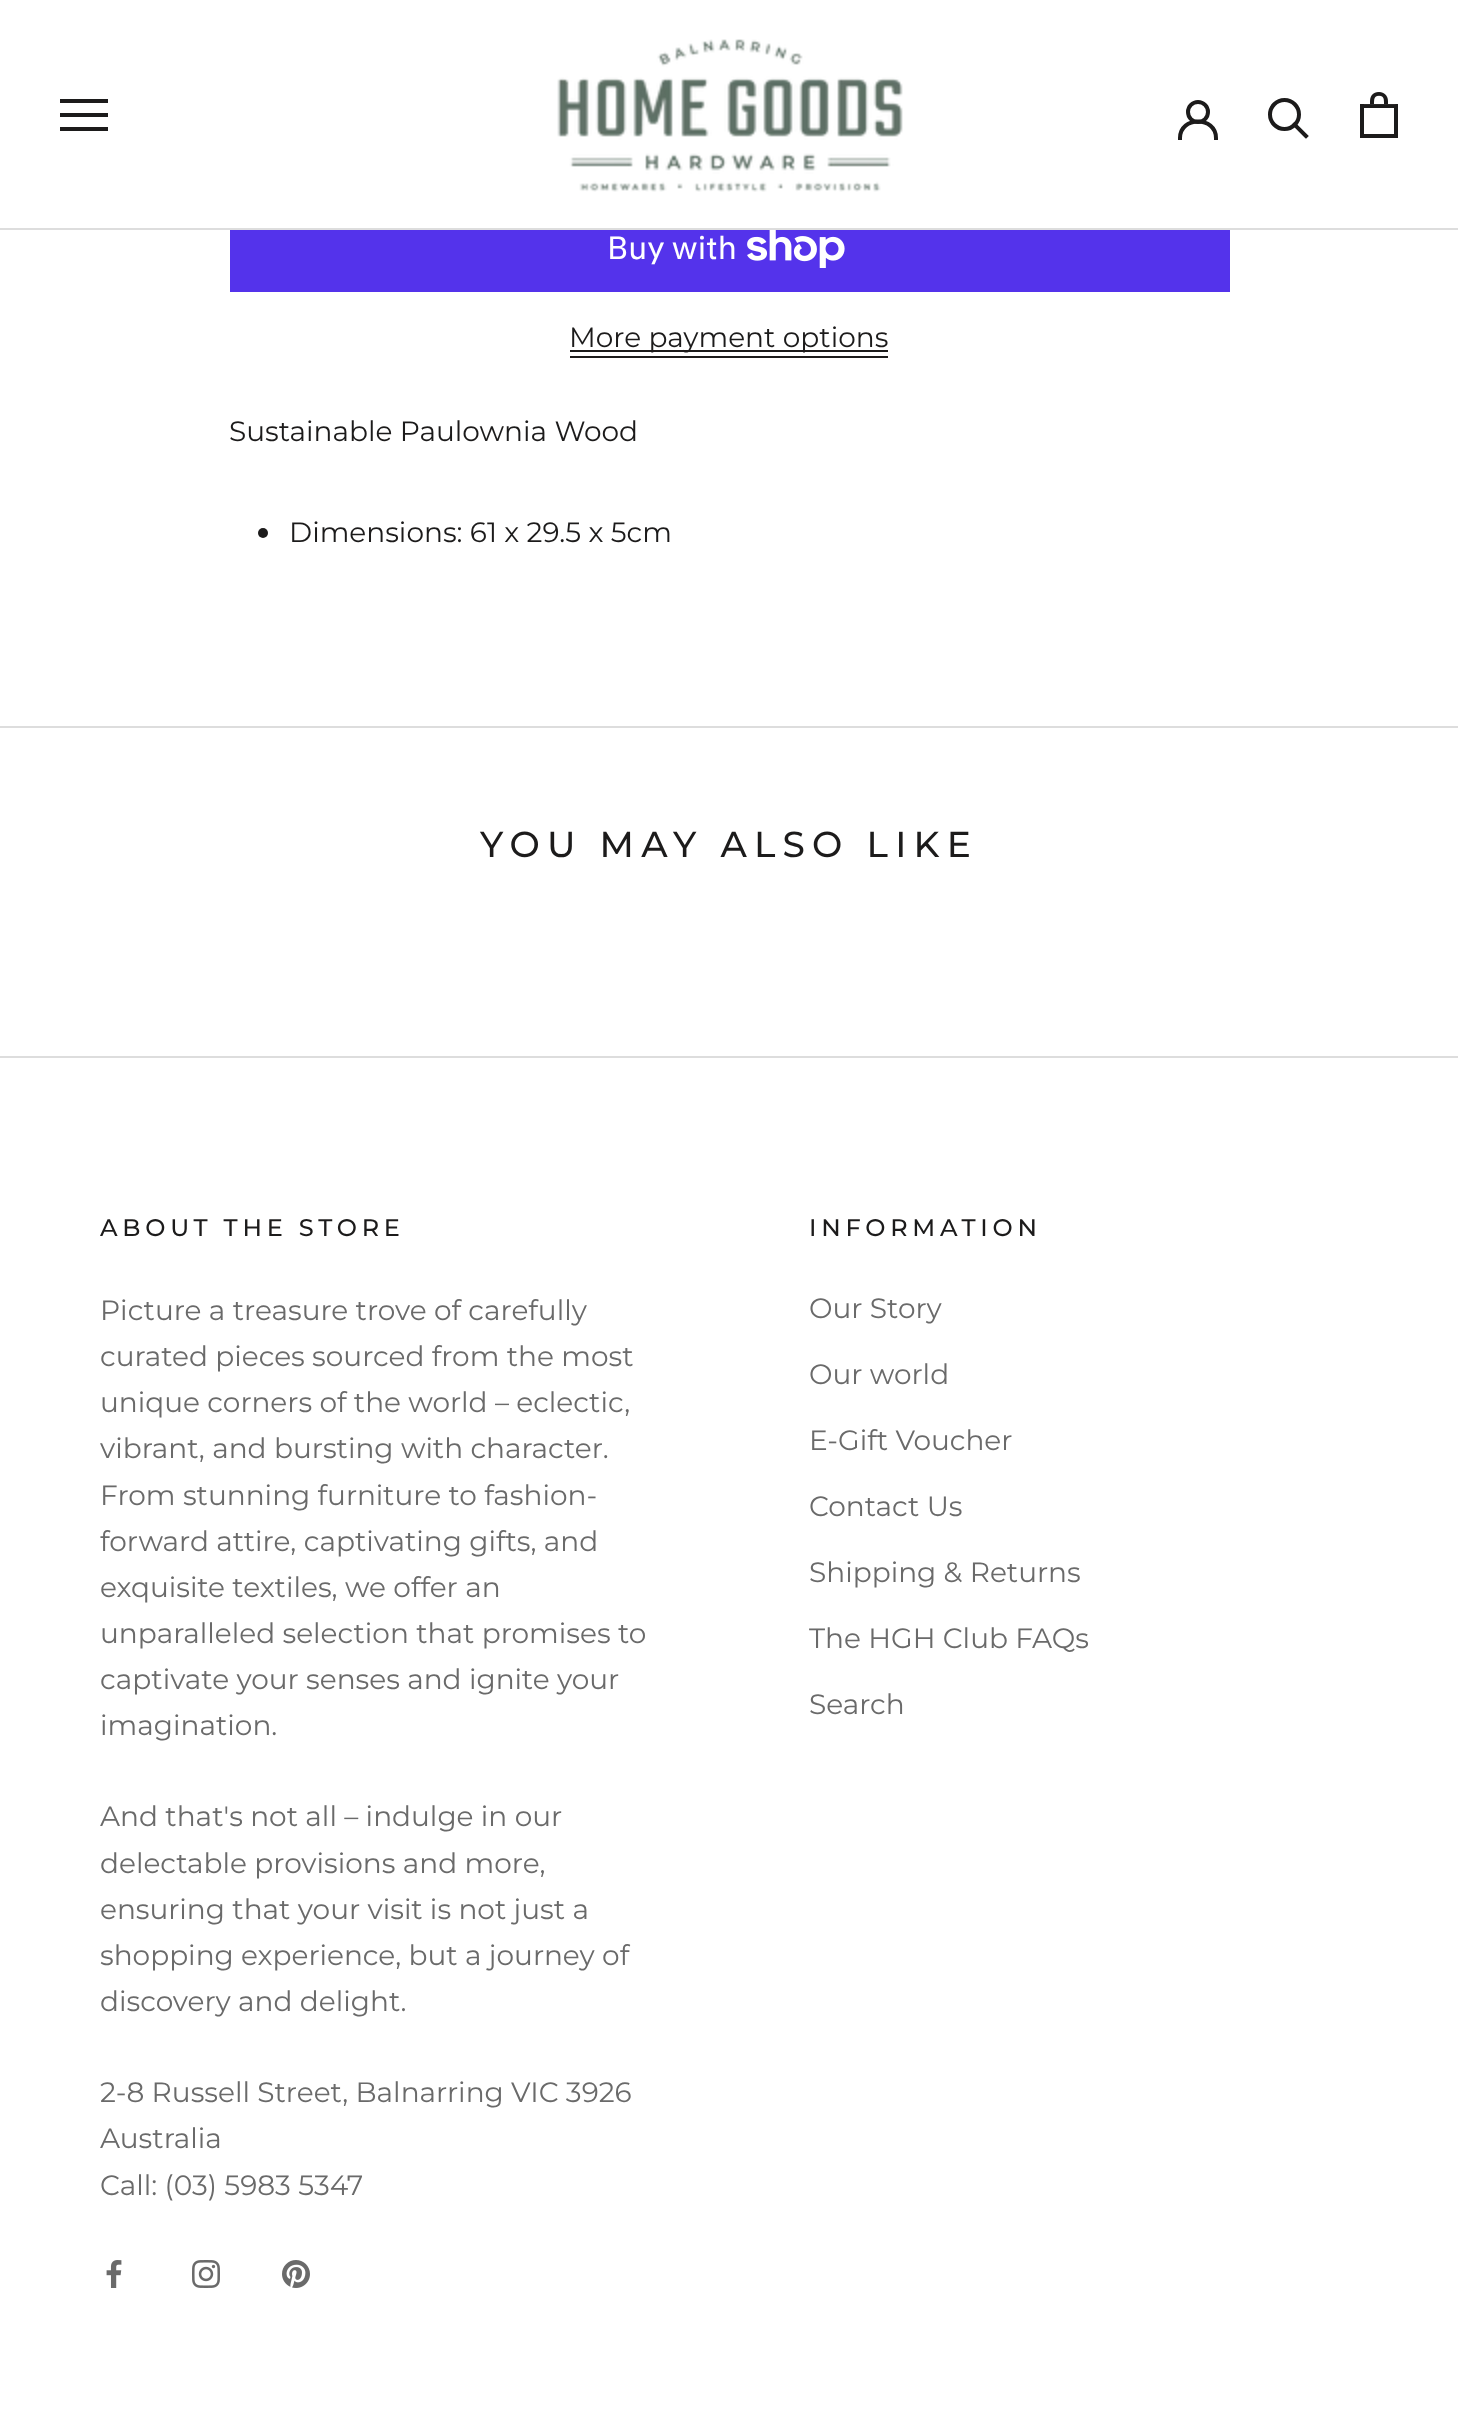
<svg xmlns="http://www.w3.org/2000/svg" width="1458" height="2430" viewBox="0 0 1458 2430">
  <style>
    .t1 { font: 32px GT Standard; fill: #fff; }
    .t2 { font: 100 28px Montserrat; fill: #1c1b1b; }
    .t3 { font: 500 36px Montserrat; letter-spacing: 7.25px; fill: #1c1b1b; }
    .t4 { font: 500 24px Montserrat; letter-spacing: 4.75px; fill: #1c1b1b; }
    .t5 { font: 100 28px Montserrat; fill: #6a6a6a; }
  </style>
  <rect width="100%" height="100%" fill="#fff"/>
  <rect x="0" y="228" width="1458" height="2" fill="#ddd"/>
  <path d="M60 131V127H108V131ZM60 113H108V117H60ZM60 99H108V103H60Z" fill="#1c1b1b"/>
  <image x="557" y="39" width="346" height="153" href="images/1.png"/>
  <path d="M1180 138C1180 116 1216 116 1216 138" fill="none" stroke="#1c1b1b" stroke-width="4" stroke-linecap="square"/>
  <circle cx="1198" cy="112" r="10" fill="none" stroke="#1c1b1b" stroke-width="4"/>
  <path d="M1306 136L1294.5 124.5" fill="none" stroke="#1c1b1b" stroke-width="4" stroke-linecap="square"/>
  <circle cx="1284.5" cy="114.5" r="14.5" fill="none" stroke="#1c1b1b" stroke-width="4"/>
  <image x="1360" y="92" width="38" height="46" href="images/2.png"/>
  <rect x="230" y="230" width="1000" height="62" fill="#5433eb"/>
  <text x="607" y="259" class="t1">Buy with</text>
  <image x="747" y="230" width="98" height="38" href="images/3.png"/>
  <rect x="570" y="350" width="318" height="2" fill="#1c1b1b"/>
  <text x="569" y="347" class="t2">More payment options</text>
  <rect x="570" y="356" width="318" height="2" fill="#1c1b1b"/>
  <text x="229" y="441" class="t2">Sustainable Paulownia Wood</text>
  <circle cx="263" cy="533" r="5" fill="#1c1b1b"/>
  <text x="289" y="542" class="t2">Dimensions: 61 x 29.5 x 5cm</text>
  <rect x="0" y="726" width="1458" height="2" fill="#ddd"/>
  <text x="480" y="857" class="t3">YOU MAY ALSO LIKE</text>
  <rect x="0" y="1056" width="1458" height="2" fill="#ddd"/>
  <text x="100" y="1236" class="t4">ABOUT THE STORE</text>
  <text x="100" y="1320" class="t5">Picture a treasure trove of carefully</text>
  <text x="100" y="1366" class="t5">curated pieces sourced from the most</text>
  <text x="100" y="1412" class="t5">unique corners of the world – eclectic,</text>
  <text x="100" y="1458" class="t5">vibrant, and bursting with character.</text>
  <text x="100" y="1505" class="t5">From stunning furniture to fashion-</text>
  <text x="100" y="1551" class="t5">forward attire, captivating gifts, and</text>
  <text x="100" y="1597" class="t5">exquisite textiles, we offer an</text>
  <text x="100" y="1643" class="t5">unparalleled selection that promises to</text>
  <text x="100" y="1689" class="t5">captivate your senses and ignite your</text>
  <text x="100" y="1735" class="t5">imagination.</text>
  <text x="100" y="1826" class="t5">And that's not all – indulge in our</text>
  <text x="100" y="1873" class="t5">delectable provisions and more,</text>
  <text x="100" y="1919" class="t5">ensuring that your visit is not just a</text>
  <text x="100" y="1965" class="t5">shopping experience, but a journey of</text>
  <text x="100" y="2011" class="t5">discovery and delight.</text>
  <text x="100" y="2102" class="t5">2-8 Russell Street, Balnarring VIC 3926</text>
  <text x="100" y="2148" class="t5">Australia</text>
  <text x="100" y="2195" class="t5">Call: (03) 5983 5347</text>
  <image x="106" y="2260" width="16" height="28" href="images/4.png"/>
  <image x="192" y="2260" width="28" height="28" href="images/5.png"/>
  <image x="282" y="2260" width="28" height="28" href="images/6.png"/>
  <text x="809" y="1236" class="t4">INFORMATION</text>
  <text x="809" y="1318" class="t5">Our Story</text>
  <text x="809" y="1384" class="t5">Our world</text>
  <text x="809" y="1450" class="t5">E-Gift Voucher</text>
  <text x="809" y="1516" class="t5">Contact Us</text>
  <text x="809" y="1582" class="t5">Shipping &amp; Returns</text>
  <text x="809" y="1648" class="t5">The HGH Club FAQs</text>
  <text x="809" y="1714" class="t5">Search</text>
</svg>
